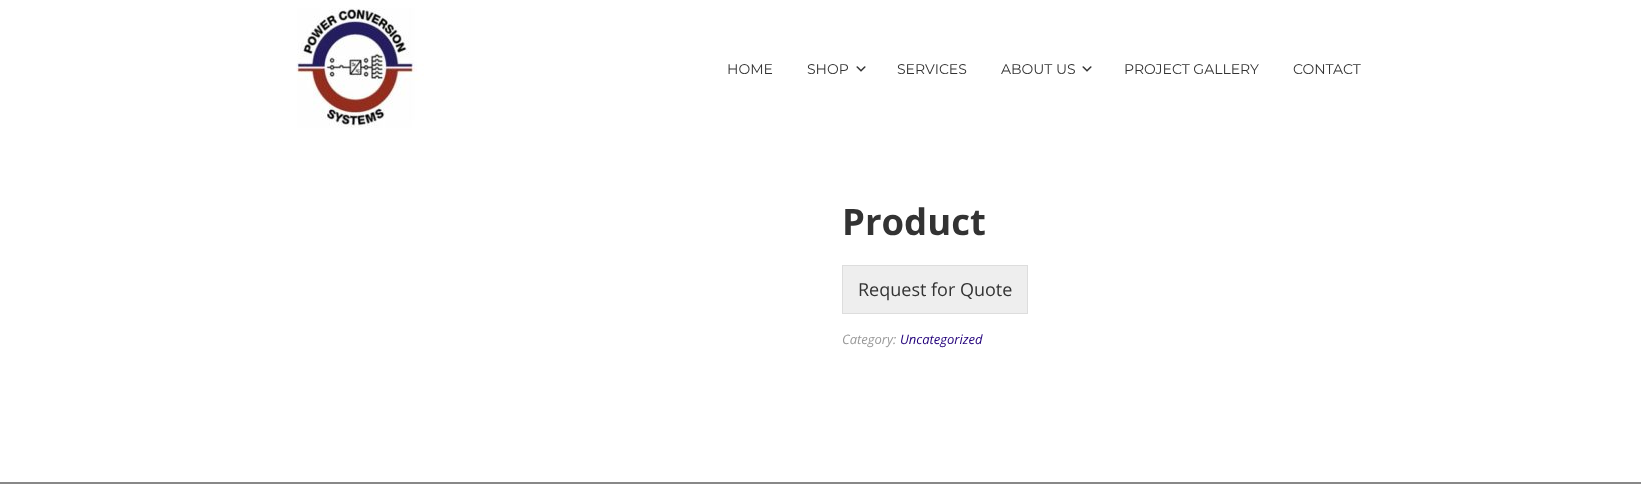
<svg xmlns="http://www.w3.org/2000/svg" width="1641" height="484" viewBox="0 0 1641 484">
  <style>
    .t1 { font: 14px Montserrat; fill: #333; }
    .t2 { font: bold 36.5px Open Sans; fill: #333; }
    .t3 { font: 18px Open Sans; fill: #333; }
    .t4 { font: italic 13px Open Sans; fill: #999; }
    .t5 { font: italic 13px Open Sans; fill: #22007a; }
  </style>
  <rect width="100%" height="100%" fill="#fff"/>
  <image x="296" y="8" width="128" height="120" href="images/1.png"/>
  <text x="727" y="74" class="t1">HOME</text>
  <text x="807" y="74" class="t1">SHOP</text>
  <image x="856" y="66" width="10" height="6" href="images/2.png"/>
  <text x="897" y="74" class="t1">SERVICES</text>
  <text x="1001" y="74" class="t1">ABOUT US</text>
  <image x="1082" y="66" width="10" height="6" href="images/2.png"/>
  <text x="1124" y="74" class="t1">PROJECT GALLERY</text>
  <text x="1293" y="74" class="t1">CONTACT</text>
  <text x="842" y="235" class="t2">Product</text>
  <rect x="842.5" y="265.5" width="185" height="48" fill="#eee" stroke="#ddd"/>
  <text x="858" y="296" class="t3">Request for Quote</text>
  <text x="842" y="344" class="t4">Category:</text>
  <text x="900" y="344" class="t5">Uncategorized</text>
  <rect x="0" y="482" width="1641" height="2" fill="#888"/>
</svg>
